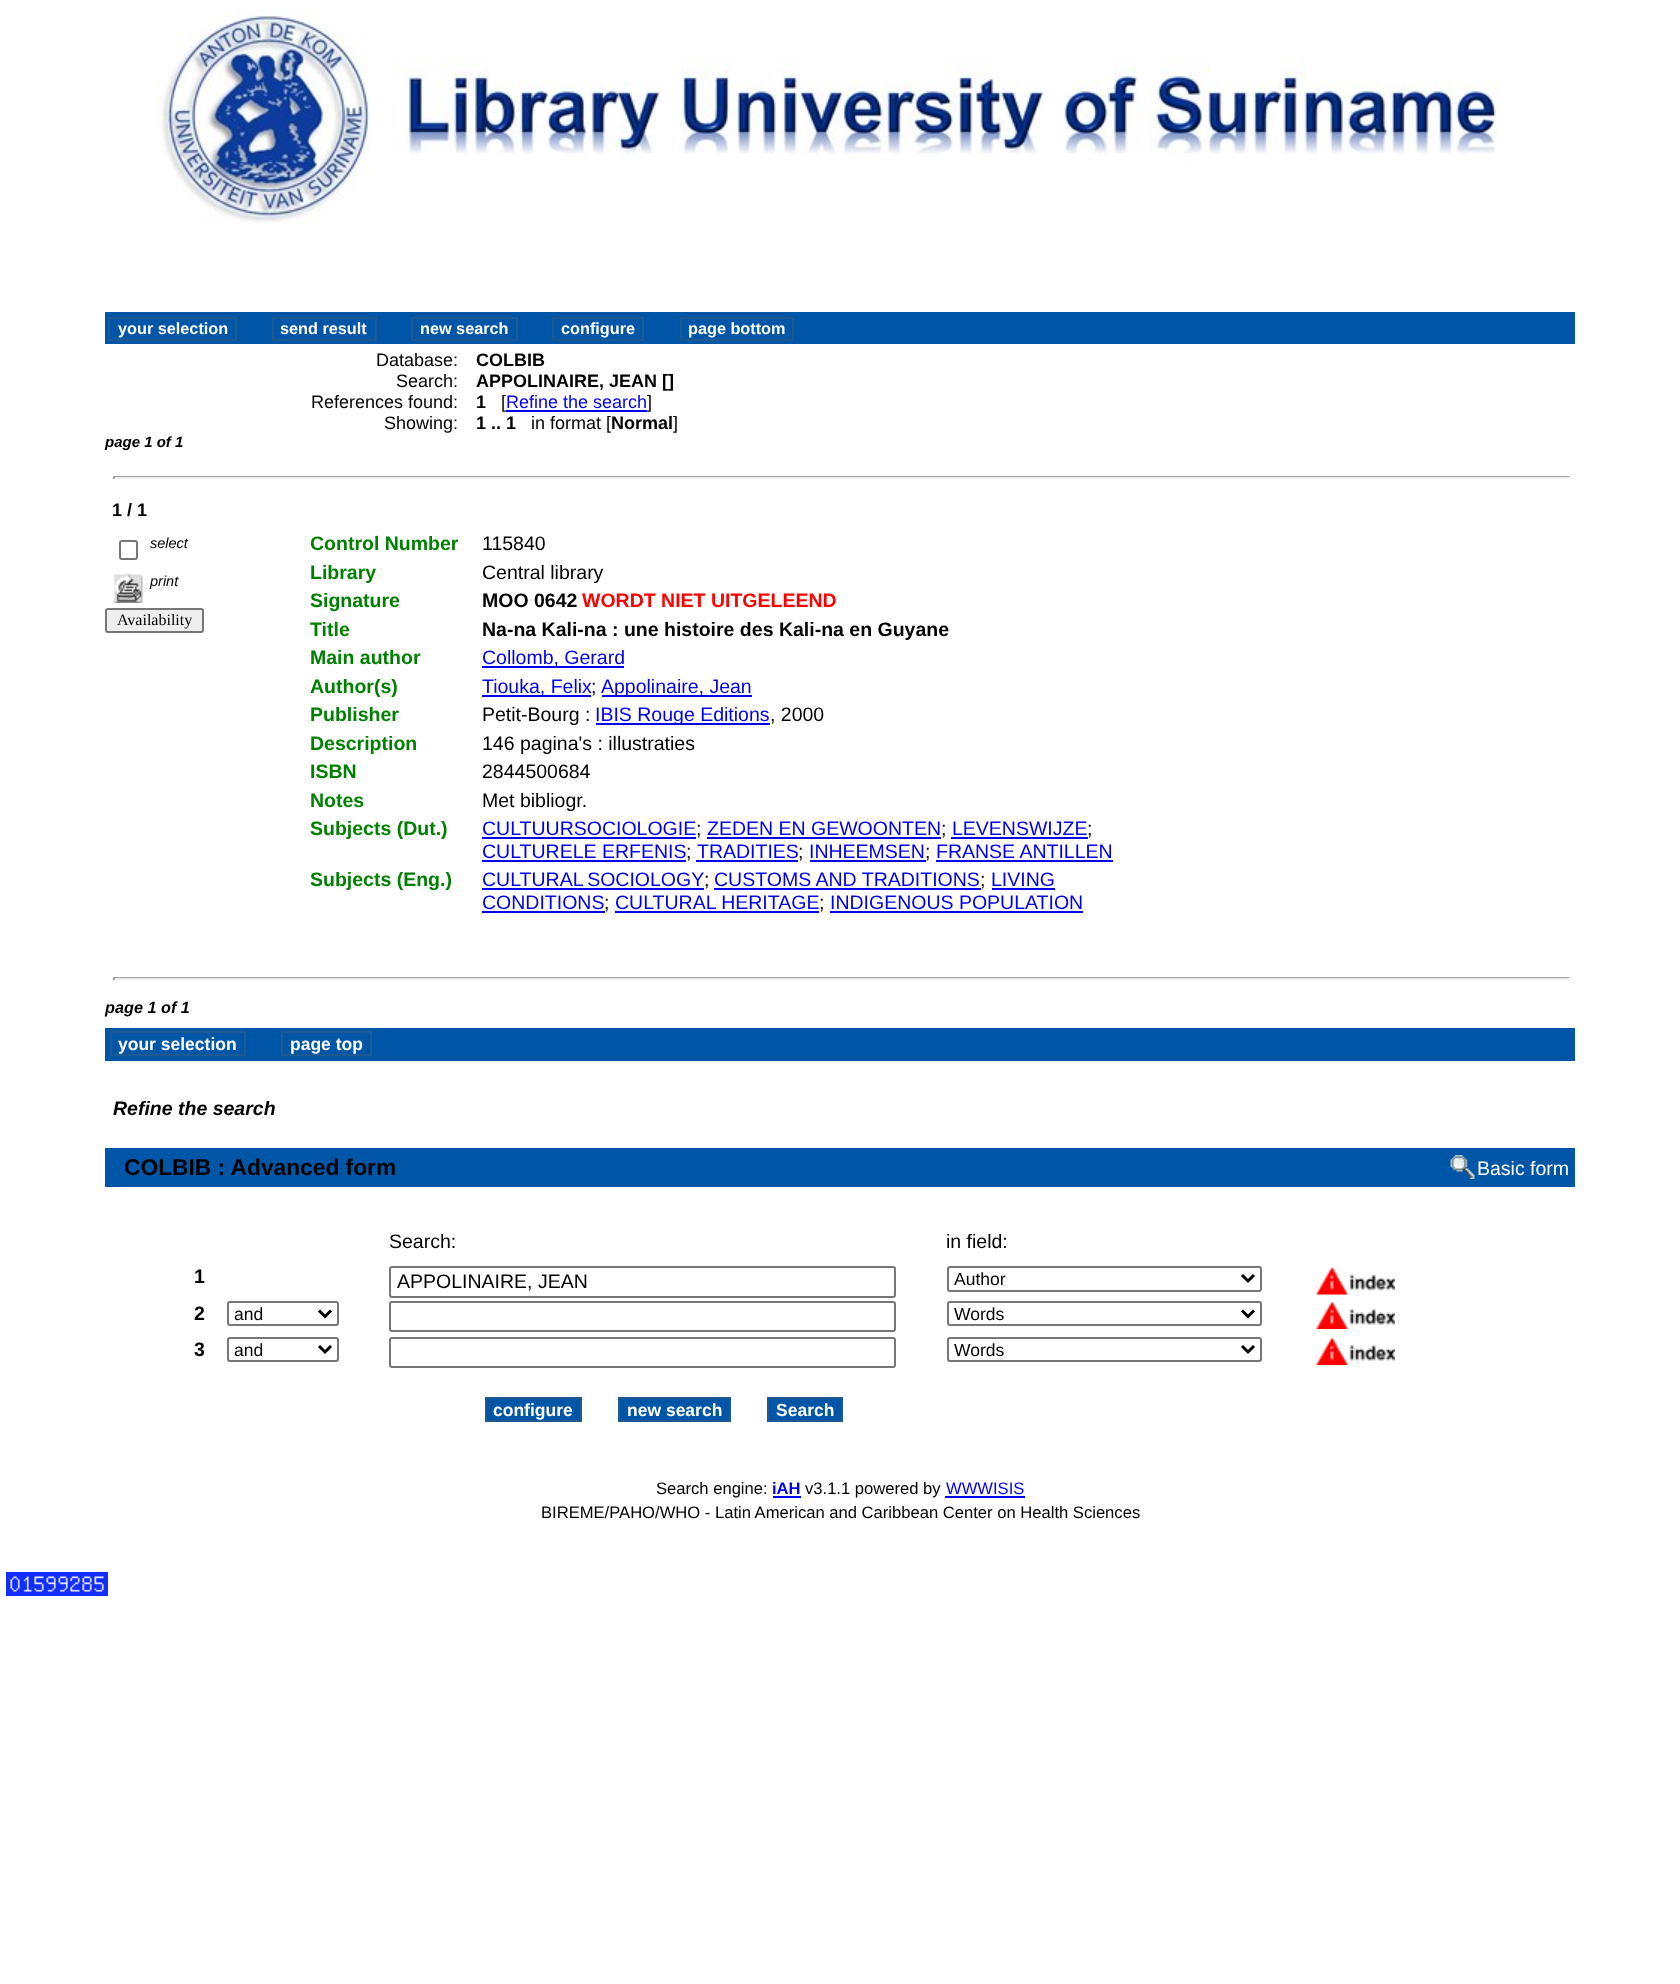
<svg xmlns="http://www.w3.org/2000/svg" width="1680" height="1984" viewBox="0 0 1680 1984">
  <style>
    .t1 { font: bold 16.25px Liberation Sans; fill: #fff; }
    .t2 { font: 18px Liberation Sans; fill: #000; }
    .t3 { font: bold 18px Liberation Sans; fill: #000; }
    .t4 { font: 18px Liberation Sans; fill: #00e; }
    .t5 { font: italic bold 15px Liberation Sans; fill: #000; }
    .t6 { font: italic 14.5px Liberation Sans; fill: #000; }
    .t7 { font: 16px Liberation Serif; fill: #000; }
    .t8 { font: bold 19.5px Liberation Sans; fill: #008000; }
    .t9 { font: 19.5px Liberation Sans; fill: #000; }
    .t10 { font: bold 19.5px Liberation Sans; fill: #000; }
    .t11 { font: bold 19.5px Liberation Sans; fill: #f00; }
    .t12 { font: 19.5px Liberation Sans; fill: #00e; }
    .t13 { font: italic bold 16.25px Liberation Sans; fill: #000; }
    .t14 { font: bold 17.5px Liberation Sans; fill: #fff; }
    .t15 { font: italic bold 19.5px Liberation Sans; fill: #000; }
    .t16 { font: bold 22.75px Liberation Sans; fill: #000; }
    .t17 { font: 19.5px Liberation Sans; fill: #fff; }
    .t18 { font: 17.5px Liberation Sans; fill: #000; }
    .t19 { font: 16.6px Liberation Sans; fill: #000; }
    .t20 { font: bold 16.6px Liberation Sans; fill: #00e; }
    .t21 { font: 16.6px Liberation Sans; fill: #00e; }
  </style>
  <rect width="100%" height="100%" fill="#fff"/>
  <image x="156" y="9" width="1342" height="217" href="images/1.png"/>
  <rect x="105" y="312" width="1470" height="32" fill="#0056a6"/>
  <rect x="109" y="318" width="127" height="22" fill="none" stroke="#1e5991" stroke-width="2"/>
  <text x="118" y="334" class="t1">your selection</text>
  <rect x="273" y="318" width="103" height="22" fill="none" stroke="#1e5991" stroke-width="2"/>
  <text x="280" y="334" class="t1">send result</text>
  <rect x="412" y="318" width="105" height="22" fill="none" stroke="#1e5991" stroke-width="2"/>
  <text x="420" y="334" class="t1">new search</text>
  <rect x="553" y="318" width="90" height="22" fill="none" stroke="#1e5991" stroke-width="2"/>
  <text x="561" y="334" class="t1">configure</text>
  <rect x="681" y="318" width="112" height="22" fill="none" stroke="#1e5991" stroke-width="2"/>
  <text x="688" y="334" class="t1">page bottom</text>
  <text x="376" y="366" class="t2">Database:</text>
  <text x="476" y="366" class="t3">COLBIB</text>
  <text x="396" y="387" class="t2">Search:</text>
  <text x="476" y="387" class="t3">APPOLINAIRE, JEAN []</text>
  <text x="311" y="408" class="t2">References found:</text>
  <text x="476" y="408" class="t3">1</text>
  <text x="501" y="408" class="t2">[</text>
  <text x="506" y="408" class="t4">Refine the search</text>
  <rect x="506" y="410" width="141" height="2" fill="#00e"/>
  <text x="647" y="408" class="t2">]</text>
  <text x="384" y="429" class="t2">Showing:</text>
  <text x="476" y="429" class="t3">1 .. 1</text>
  <text x="531" y="429" class="t2">in format [</text>
  <text x="611" y="429" class="t3">Normal</text>
  <text x="673" y="429" class="t2">]</text>
  <text x="105" y="447" class="t5">page 1 of 1</text>
  <rect x="113" y="476" width="1458" height="1" fill="#9f9f9f"/>
  <rect x="1569" y="476" width="2" height="3" fill="#eee"/>
  <rect x="113" y="477" width="1458" height="2" fill="#eee"/>
  <rect x="113" y="476" width="2" height="3" fill="#9f9f9f"/>
  <text x="112" y="516" class="t3">1 / 1</text>
  <rect x="120" y="541" width="17" height="18" rx="2" fill="none" stroke="#767676" stroke-width="2"/>
  <text x="150" y="548" class="t6">select</text>
  <image x="112" y="573" width="31" height="30" href="images/2.png"/>
  <text x="150" y="586" class="t6">print</text>
  <rect x="106" y="609" width="97" height="23" rx="2" fill="#efefef" stroke="#767676" stroke-width="2"/>
  <text x="117" y="625" class="t7">Availability</text>
  <text x="310" y="550" class="t8">Control Number</text>
  <text x="482" y="550" class="t9">115840</text>
  <text x="310" y="579" class="t8">Library</text>
  <text x="482" y="579" class="t9">Central library</text>
  <text x="310" y="607" class="t8">Signature</text>
  <text x="482" y="607" class="t10">MOO 0642</text>
  <text x="582" y="607" class="t11">WORDT NIET UITGELEEND</text>
  <text x="310" y="636" class="t8">Title</text>
  <text x="482" y="636" class="t10">Na-na Kali-na : une histoire des Kali-na en Guyane</text>
  <text x="310" y="664" class="t8">Main author</text>
  <rect x="482" y="666" width="142" height="2" fill="#00e"/>
  <text x="482" y="664" class="t12">Collomb, Gerard</text>
  <text x="310" y="693" class="t8">Author(s)</text>
  <rect x="482" y="695" width="109" height="2" fill="#00e"/>
  <text x="482" y="693" class="t12">Tiouka, Felix</text>
  <text x="591" y="693" class="t9">;</text>
  <rect x="602" y="695" width="150" height="2" fill="#00e"/>
  <text x="601" y="693" class="t12">Appolinaire, Jean</text>
  <text x="310" y="721" class="t8">Publisher</text>
  <text x="482" y="721" class="t9">Petit-Bourg :</text>
  <rect x="596" y="723" width="174" height="2" fill="#00e"/>
  <text x="595" y="721" class="t12">IBIS Rouge Editions</text>
  <text x="770" y="721" class="t9">, 2000</text>
  <text x="310" y="750" class="t8">Description</text>
  <text x="482" y="750" class="t9">146 pagina's : illustraties</text>
  <text x="310" y="778" class="t8">ISBN</text>
  <text x="482" y="778" class="t9">2844500684</text>
  <text x="310" y="807" class="t8">Notes</text>
  <text x="482" y="807" class="t9">Met bibliogr.</text>
  <text x="310" y="835" class="t8">Subjects (Dut.)</text>
  <text x="482" y="835" class="t12">CULTUURSOCIOLOGIE</text>
  <text x="696" y="835" class="t9">;</text>
  <rect x="482" y="837" width="214" height="2" fill="#00e"/>
  <text x="707" y="835" class="t12">ZEDEN EN GEWOONTEN</text>
  <text x="941" y="835" class="t9">;</text>
  <rect x="707" y="837" width="234" height="2" fill="#00e"/>
  <text x="952" y="835" class="t12">LEVENSWIJZE</text>
  <text x="1087" y="835" class="t9">;</text>
  <rect x="951" y="837" width="137" height="2" fill="#00e"/>
  <text x="482" y="858" class="t12">CULTURELE ERFENIS</text>
  <text x="686" y="858" class="t9">;</text>
  <rect x="482" y="860" width="204" height="2" fill="#00e"/>
  <text x="697" y="858" class="t12">TRADITIES</text>
  <text x="798" y="858" class="t9">;</text>
  <rect x="696" y="860" width="102" height="2" fill="#00e"/>
  <text x="809" y="858" class="t12">INHEEMSEN</text>
  <text x="925" y="858" class="t9">;</text>
  <rect x="810" y="860" width="116" height="2" fill="#00e"/>
  <text x="936" y="858" class="t12">FRANSE ANTILLEN</text>
  <rect x="936" y="860" width="177" height="2" fill="#00e"/>
  <text x="310" y="886" class="t8">Subjects (Eng.)</text>
  <text x="482" y="886" word-spacing="-1" class="t12">CULTURAL SOCIOLOGY</text>
  <text x="704" y="886" class="t9">;</text>
  <rect x="482" y="888" width="222" height="2" fill="#00e"/>
  <text x="714" y="886" class="t12">CUSTOMS AND TRADITIONS</text>
  <text x="980" y="886" class="t9">;</text>
  <rect x="714" y="888" width="267" height="2" fill="#00e"/>
  <text x="991" y="886" class="t12">LIVING</text>
  <rect x="992" y="888" width="63" height="2" fill="#00e"/>
  <text x="482" y="909" class="t12">CONDITIONS</text>
  <text x="604" y="909" class="t9">;</text>
  <rect x="482" y="911" width="123" height="2" fill="#00e"/>
  <text x="615" y="909" class="t12">CULTURAL HERITAGE</text>
  <text x="819" y="909" class="t9">;</text>
  <rect x="615" y="911" width="204" height="2" fill="#00e"/>
  <text x="830" y="909" class="t12">INDIGENOUS POPULATION</text>
  <rect x="830" y="911" width="253" height="2" fill="#00e"/>
  <rect x="113" y="977" width="1458" height="1" fill="#9f9f9f"/>
  <rect x="1569" y="977" width="2" height="3" fill="#eee"/>
  <rect x="113" y="978" width="1458" height="2" fill="#eee"/>
  <rect x="113" y="977" width="2" height="3" fill="#9f9f9f"/>
  <text x="105" y="1013" class="t13">page 1 of 1</text>
  <rect x="105" y="1028" width="1470" height="33" fill="#0056a6"/>
  <rect x="111" y="1032" width="134" height="23" fill="none" stroke="#1e5991" stroke-width="2"/>
  <text x="118" y="1050" class="t14">your selection</text>
  <rect x="282" y="1032" width="89" height="23" fill="none" stroke="#1e5991" stroke-width="2"/>
  <text x="290" y="1050" class="t14">page top</text>
  <text x="113" y="1115" class="t15">Refine the search</text>
  <rect x="105" y="1148" width="1470" height="39" fill="#0056a6"/>
  <text x="124" y="1175" class="t16">COLBIB : Advanced form</text>
  <image x="1450" y="1155" width="25" height="24" href="images/3.png"/>
  <text x="1477" y="1175" class="t17">Basic form</text>
  <text x="389" y="1248" class="t9">Search:</text>
  <text x="946" y="1248" class="t9">in field:</text>
  <text x="194" y="1283" class="t10">1</text>
  <rect x="390" y="1267" width="505" height="30" rx="2" fill="none" stroke="#767676" stroke-width="2"/>
  <text x="397" y="1288" class="t9">APPOLINAIRE, JEAN</text>
  <rect x="948" y="1267" width="313" height="24" rx="2" fill="none" stroke="#767676" stroke-width="2"/>
  <path d="M1242 1275L1248 1281L1254 1275" fill="none" stroke="#000" stroke-width="3"/>
  <text x="954" y="1285" class="t18">Author</text>
  <image x="1315" y="1267" width="80" height="28" href="images/4.png"/>
  <text x="194" y="1320" class="t10">2</text>
  <rect x="228" y="1302" width="110" height="23" rx="2" fill="none" stroke="#767676" stroke-width="2"/>
  <path d="M319 1310.5L325 1316.5L331 1310.5" fill="none" stroke="#000" stroke-width="3"/>
  <text x="234" y="1320" class="t18">and</text>
  <rect x="390" y="1302" width="505" height="29" rx="2" fill="none" stroke="#767676" stroke-width="2"/>
  <rect x="948" y="1302" width="313" height="23" rx="2" fill="none" stroke="#767676" stroke-width="2"/>
  <path d="M1242 1310.5L1248 1316.5L1254 1310.5" fill="none" stroke="#000" stroke-width="3"/>
  <text x="954" y="1320" class="t18">Words</text>
  <image x="1315" y="1301" width="80" height="28" href="images/5.png"/>
  <text x="194" y="1356" class="t10">3</text>
  <rect x="228" y="1338" width="110" height="23" rx="2" fill="none" stroke="#767676" stroke-width="2"/>
  <path d="M319 1346L325 1352L331 1346" fill="none" stroke="#000" stroke-width="3"/>
  <text x="234" y="1356" class="t18">and</text>
  <rect x="390" y="1338" width="505" height="29" rx="2" fill="none" stroke="#767676" stroke-width="2"/>
  <rect x="948" y="1338" width="313" height="23" rx="2" fill="none" stroke="#767676" stroke-width="2"/>
  <path d="M1242 1346L1248 1352L1254 1346" fill="none" stroke="#000" stroke-width="3"/>
  <text x="954" y="1356" class="t18">Words</text>
  <image x="1315" y="1337" width="80" height="28" href="images/5.png"/>
  <rect x="486" y="1398" width="95" height="23" fill="#0056a6" stroke="#1e5991" stroke-width="2"/>
  <text x="493" y="1416" class="t14">configure</text>
  <rect x="619" y="1398" width="111" height="23" fill="#0056a6" stroke="#1e5991" stroke-width="2"/>
  <text x="627" y="1416" class="t14">new search</text>
  <rect x="768" y="1398" width="74" height="23" fill="#0056a6" stroke="#1e5991" stroke-width="2"/>
  <text x="776" y="1416" class="t14">Search</text>
  <text x="656" y="1494" class="t19">Search engine:</text>
  <text x="772" y="1494" class="t20">iAH</text>
  <rect x="773" y="1496" width="28" height="2" fill="#00e"/>
  <text x="805" y="1494" class="t19">v3.1.1 powered by</text>
  <text x="946" y="1494" class="t21">WWWISIS</text>
  <rect x="945" y="1496" width="80" height="2" fill="#00e"/>
  <text x="541" y="1518" class="t19">BIREME/PAHO/WHO - Latin American and Caribbean Center on Health Sciences</text>
  <image x="6" y="1572" width="102" height="24" href="images/6.png"/>
</svg>
